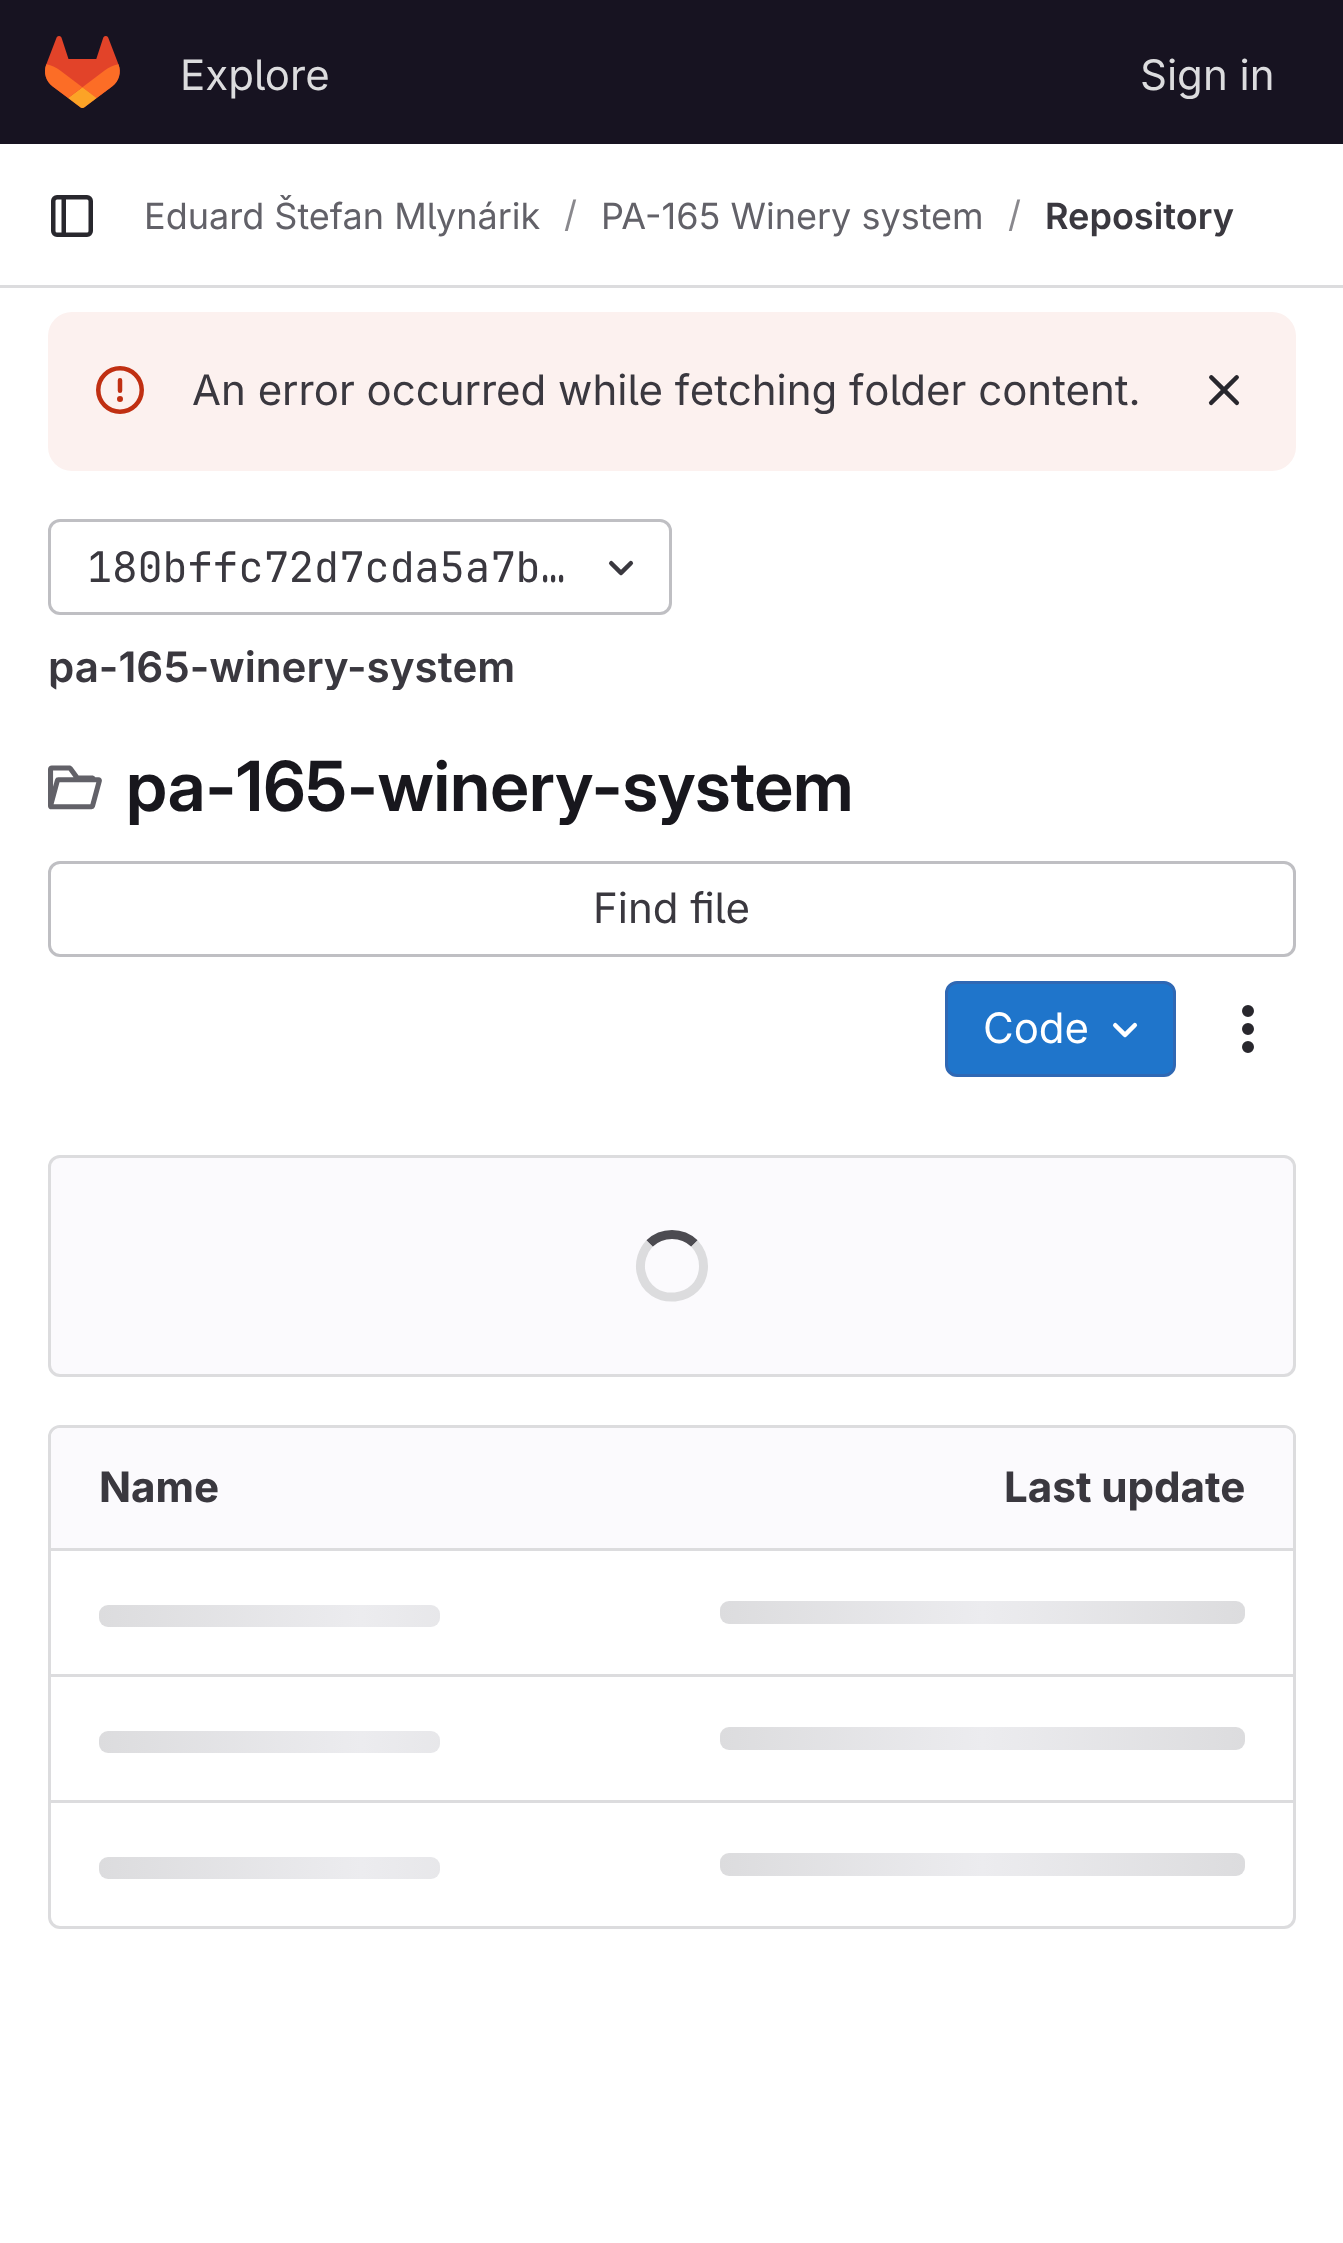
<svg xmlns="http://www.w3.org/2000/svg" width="1343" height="2243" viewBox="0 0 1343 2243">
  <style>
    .t1 { font: 42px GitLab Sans; fill: #dcdcde; }
    .t2 { font: 36px GitLab Sans; fill: #626168; }
    .t3 { font: 36px GitLab Sans; fill: #89888d; }
    .t4 { font: 600 36px 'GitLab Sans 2'; fill: #3a383f; }
    .t5 { font: 42px GitLab Sans; fill: #3a383f; }
    .t6 { font: 42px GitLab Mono; fill: #3a383f; }
    .t7 { font: 600 42px 'GitLab Sans 2'; fill: #3a383f; }
    .t8 { font: 600 69px GitLab Sans; fill: #18171d; }
    .t9 { font: 42px GitLab Sans; fill: #fff; }
    .t10 { font: bold 42px GitLab Sans; fill: #3a383f; }
  </style>
  <defs>
    <clipPath id="clip1"><rect x="48" y="639" width="468" height="51" rx="12"/></clipPath>
    <linearGradient id="g1" gradientUnits="userSpaceOnUse" x1="720" y1="1601" x2="1245" y2="1601"><stop offset="0" stop-color="#dcdcde"/><stop offset="0.5" stop-color="#ececef"/><stop offset="1" stop-color="#dcdcde"/></linearGradient>
    <linearGradient id="g2" gradientUnits="userSpaceOnUse" x1="99" y1="1605" x2="624" y2="1605"><stop offset="0" stop-color="#dcdcde"/><stop offset="0.5" stop-color="#ececef"/><stop offset="1" stop-color="#dcdcde"/></linearGradient>
    <linearGradient id="g3" gradientUnits="userSpaceOnUse" x1="99" y1="1731" x2="624" y2="1731"><stop offset="0" stop-color="#dcdcde"/><stop offset="0.5" stop-color="#ececef"/><stop offset="1" stop-color="#dcdcde"/></linearGradient>
    <linearGradient id="g4" gradientUnits="userSpaceOnUse" x1="720" y1="1727" x2="1245" y2="1727"><stop offset="0" stop-color="#dcdcde"/><stop offset="0.5" stop-color="#ececef"/><stop offset="1" stop-color="#dcdcde"/></linearGradient>
    <linearGradient id="g5" gradientUnits="userSpaceOnUse" x1="99" y1="1857" x2="624" y2="1857"><stop offset="0" stop-color="#dcdcde"/><stop offset="0.5" stop-color="#ececef"/><stop offset="1" stop-color="#dcdcde"/></linearGradient>
    <linearGradient id="g6" gradientUnits="userSpaceOnUse" x1="720" y1="1853" x2="1245" y2="1853"><stop offset="0" stop-color="#dcdcde"/><stop offset="0.5" stop-color="#ececef"/><stop offset="1" stop-color="#dcdcde"/></linearGradient>
  </defs>
  <rect width="100%" height="100%" fill="#fff"/>
  <rect x="0" y="0" width="1343" height="144" fill="#171321"/>
  <image x="45" y="36" width="75" height="72" href="images/1.png"/>
  <text x="180" y="90" class="t1">Explore</text>
  <text x="1140" y="90" class="t1">Sign in</text>
  <rect x="0" y="285" width="1343" height="3" fill="#dcdcde"/>
  <image x="51" y="195" width="42" height="42" href="images/2.png"/>
  <text x="144" y="229" class="t2">Eduard Štefan Mlynárik</text>
  <text x="564" y="227" class="t3">/</text>
  <text x="601" y="229" class="t2">PA-165 Winery system</text>
  <text x="1008" y="227" class="t3">/</text>
  <text x="1045" y="229" class="t4">Repository</text>
  <rect x="48" y="312" width="1248" height="159" rx="24" fill="#fcf1ef"/>
  <image x="96" y="366" width="48" height="48" href="images/3.png"/>
  <text x="192" y="405" class="t5">An error occurred while fetching folder content.</text>
  <image x="1208" y="375" width="32" height="31" href="images/4.png"/>
  <rect x="49.5" y="520.5" width="621" height="93" rx="10.5" fill="none" stroke="#bfbfc3" stroke-width="3"/>
  <text x="87" y="582" class="t6">180bffc72d7cda5a7b…</text>
  <image x="608" y="560" width="26" height="16" href="images/5.png"/>
  <g clip-path="url(#clip1)">
    <text x="48" y="682" class="t7">pa-165-winery-system</text>
  </g>
  <image x="48" y="765" width="54" height="45" href="images/6.png"/>
  <text x="126" y="811" class="t8">pa-165-winery-system</text>
  <rect x="49.5" y="862.5" width="1245" height="93" rx="10.5" fill="none" stroke="#bfbfc3" stroke-width="3"/>
  <text x="593" y="923" class="t5">Find file</text>
  <rect x="946.5" y="982.5" width="228" height="93" rx="10.5" fill="#1f75cb" stroke="#2f68b4" stroke-width="3"/>
  <text x="983" y="1043" class="t9">Code</text>
  <image x="1112" y="1022" width="26" height="16" href="images/7.png"/>
  <image x="1242" y="1005" width="12" height="48" href="images/8.png"/>
  <rect x="49.5" y="1156.5" width="1245" height="219" rx="10.5" fill="#fbfafd" stroke="#dcdcde" stroke-width="3"/>
  <path d="M649.5 1243.5C662 1231.5 682 1231.5 694.5 1243.5" fill="none" stroke="#4c4b51" stroke-width="9"/>
  <path d="M694.5 1243.5C700 1249.5 703.5 1257.5 703.5 1266C703.5 1303.5 648.5 1309 641 1272C639 1262 642.5 1251 649.5 1243.5" fill="none" stroke="#dcdcde" stroke-width="9"/>
  <rect x="49.5" y="1426.5" width="1245" height="501" rx="10.5" fill="none" stroke="#dcdcde" stroke-width="3"/>
  <path d="M60 1428H672V1548H51V1437C51 1432 55 1428 60 1428Z" fill="#fbfafd"/>
  <text x="99" y="1502" class="t10">Name</text>
  <path d="M672 1428H1284C1289 1428 1293 1432 1293 1437V1548H672Z" fill="#fbfafd"/>
  <text x="1004" y="1502" class="t10">Last update</text>
  <rect x="51" y="1674" width="1242" height="3" fill="#dcdcde"/>
  <rect x="51" y="1548" width="1242" height="3" fill="#dcdcde"/>
  <rect x="720" y="1601" width="525" height="23" rx="9" fill="url(#g1)"/>
  <rect x="99" y="1605" width="341" height="22" rx="9" fill="url(#g2)"/>
  <rect x="51" y="1800" width="1242" height="3" fill="#dcdcde"/>
  <rect x="99" y="1731" width="341" height="22" rx="9" fill="url(#g3)"/>
  <rect x="720" y="1727" width="525" height="23" rx="9" fill="url(#g4)"/>
  <rect x="99" y="1857" width="341" height="22" rx="9" fill="url(#g5)"/>
  <rect x="720" y="1853" width="525" height="23" rx="9" fill="url(#g6)"/>
</svg>
